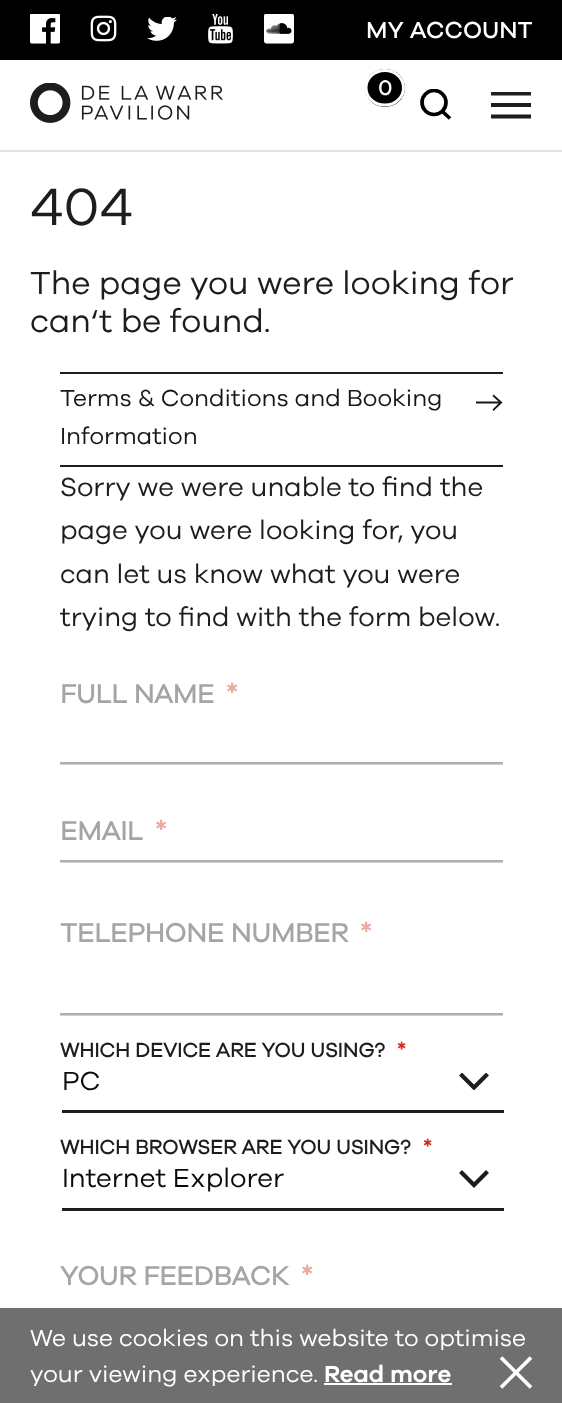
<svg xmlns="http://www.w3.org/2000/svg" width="562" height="1403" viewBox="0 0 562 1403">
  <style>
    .t1 { font: 500 24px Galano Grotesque; fill: #fff; }
    .t2 { font: bold 21px Galano Grotesque; fill: #fff; }
    .t3 { font: 54px Galano Grotesque; fill: #1d1d1b; }
    .t4 { font: 33px Galano Grotesque; fill: #1d1d1b; }
    .t5 { font: 24px Galano Grotesque; fill: #171714; }
    .t6 { font: 27px Galano Grotesque; fill: #1d1d1b; }
    .t7 { font: bold 27px Galano Grotesque; fill: #a5a5a4; }
    .t8 { font: bold 27px Galano Grotesque; fill: #ebaba2; }
    .t9 { font: bold 20.25px Galano Grotesque; fill: #1d1d1b; }
    .t10 { font: bold 20.25px Galano Grotesque; fill: #ce2c17; }
    .t11 { font: 27px Galano Grotesque; fill: #0a0a0a; }
    .t12 { font: 24px Galano Grotesque; fill: #fff; }
    .t13 { font: 600 24px Galano Grotesque; fill: #fff; }
  </style>
  <defs>
    <clipPath id="clip1"><rect x="420" y="89" width="32" height="31"/></clipPath>
    <clipPath id="clip2"><rect x="491" y="92" width="40" height="27"/></clipPath>
    <clipPath id="clip3"><rect x="476" y="395" width="27" height="16"/></clipPath>
  </defs>
  <rect width="100%" height="100%" fill="#fff"/>
  <rect x="60" y="1015" width="443" height="1" fill="#d2d2d1"/>
  <rect x="60" y="862" width="443" height="1" fill="#d2d2d1"/>
  <rect x="60" y="764" width="443" height="1" fill="#d2d2d1"/>
  <rect x="0" y="0" width="562" height="60" fill="#000"/>
  <image x="30" y="14" width="30" height="30" href="images/1.png"/>
  <image x="90" y="15" width="27" height="27" href="images/2.png"/>
  <image x="147" y="17" width="30" height="24" href="images/3.png"/>
  <image x="208" y="14" width="25" height="30" href="images/4.png"/>
  <image x="264" y="14" width="30" height="30" href="images/5.png"/>
  <text x="366" y="38" class="t1">MY ACCOUNT</text>
  <rect x="0" y="150" width="562" height="2" fill="#e3e3e3"/>
  <image x="30" y="83" width="193" height="40" href="images/6.png"/>
  <ellipse cx="385" cy="88" rx="20" ry="19" fill="#000"/>
  <path d="M385 70.5C395 70.5 403.5 78 403.5 88C403.5 97.5 395 105 385 105C374.5 105 366 97.5 366 88C366 78 374.5 70.5 385 70.5Z" fill="none" stroke="#fff" stroke-width="3"/>
  <text x="378" y="95" class="t2">0</text>
  <g clip-path="url(#clip1)">
    <circle cx="434" cy="102.5" r="12" fill="none" stroke="#000" stroke-width="3.7"/>
  </g>
  <path d="M442.5 111.5L450 118.5" fill="none" stroke="#000" stroke-width="3.7"/>
  <g clip-path="url(#clip2)">
    <path d="M490.5 93.5H531M490.5 105H531M490.5 116.5H531" fill="none" stroke="#1d1d1b" stroke-width="4.2"/>
  </g>
  <text x="30" y="225" class="t3">404</text>
  <text x="30" y="294" class="t4">The page you were looking for</text>
  <text x="30" y="332" class="t4">can‘t be found.</text>
  <rect x="60" y="372" width="443" height="2" fill="#1d1d1b"/>
  <rect x="60" y="465" width="443" height="2" fill="#1d1d1b"/>
  <g clip-path="url(#clip3)">
    <path d="M475.5 402.5H500.5" fill="none" stroke="#171714" stroke-width="2"/>
  </g>
  <path d="M493.5 411L492.5 409.5L499.5 402.5L492.5 396L493.5 394.5L502.5 402.5Z" fill="#171714"/>
  <text x="60" y="406" class="t5">Terms &amp; Conditions and Booking</text>
  <text x="60" y="444" class="t5">Information</text>
  <text x="60" y="496" class="t6">Sorry we were unable to find the</text>
  <text x="60" y="539" class="t6">page you were looking for, you</text>
  <text x="60" y="583" class="t6">can let us know what you were</text>
  <text x="60" y="626" class="t6">trying to find with the form below.</text>
  <text x="60" y="703" class="t7">FULL NAME</text>
  <text x="226" y="703" class="t8">*</text>
  <rect x="60" y="762" width="443" height="2" fill="#aeaead"/>
  <text x="60" y="840" class="t7">EMAIL</text>
  <text x="155" y="840" class="t8">*</text>
  <rect x="60" y="860" width="443" height="2" fill="#aeaead"/>
  <text x="60" y="942" class="t7">TELEPHONE NUMBER</text>
  <text x="360" y="942" class="t8">*</text>
  <rect x="60" y="1013" width="443" height="2" fill="#aeaead"/>
  <text x="60" y="1057" class="t9">WHICH DEVICE ARE YOU USING?</text>
  <text x="397" y="1057" class="t10">*</text>
  <image x="459" y="1073" width="30" height="18" href="images/7.png"/>
  <rect x="62" y="1110" width="442" height="3" fill="#1d1d1b"/>
  <text x="62" y="1090" class="t11">PC</text>
  <text x="60" y="1154" class="t9">WHICH BROWSER ARE YOU USING?</text>
  <text x="423" y="1154" class="t10">*</text>
  <image x="459" y="1170" width="30" height="18" href="images/8.png"/>
  <rect x="62" y="1208" width="442" height="3" fill="#1d1d1b"/>
  <text x="62" y="1187" class="t11">Internet Explorer</text>
  <text x="60" y="1285" class="t7">YOUR FEEDBACK</text>
  <text x="301" y="1285" class="t8">*</text>
  <rect x="0" y="1308" width="562" height="95" fill="#706f6f"/>
  <text x="30" y="1346" class="t12">We use cookies on this website to optimise</text>
  <text x="30" y="1382" class="t12">your viewing experience.</text>
  <text x="324" y="1382" class="t13">Read more</text>
  <rect x="324" y="1383" width="128" height="2" fill="#fff"/>
  <path d="M501 1357.5L531 1387.5M501 1387.5L531 1357.5" fill="none" stroke="#fff" stroke-width="3.7"/>
</svg>
